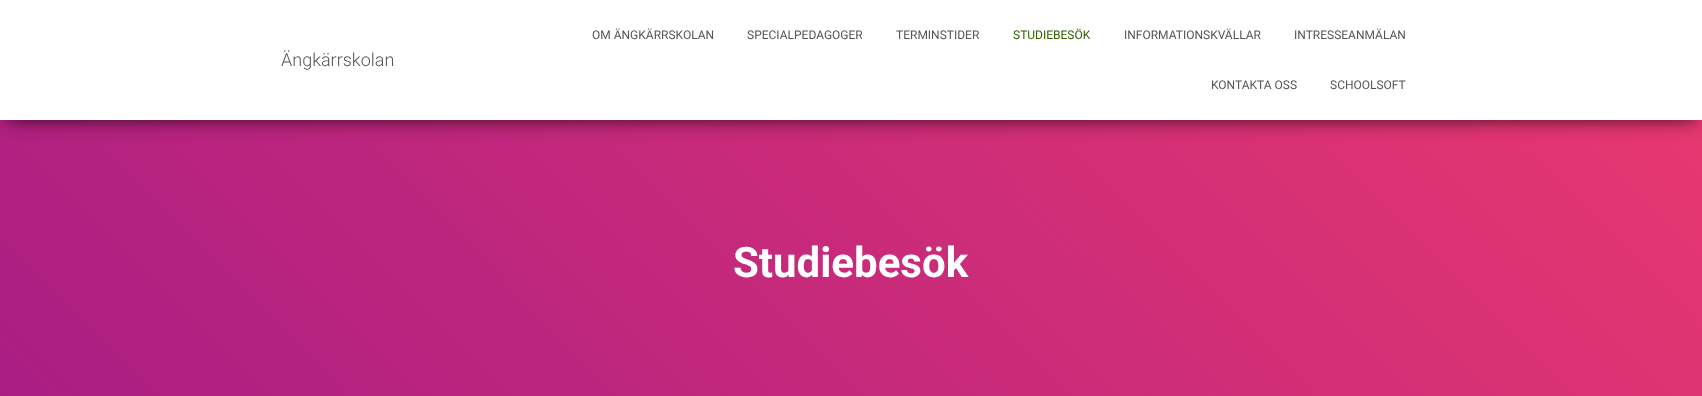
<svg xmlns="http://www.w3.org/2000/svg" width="1702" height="396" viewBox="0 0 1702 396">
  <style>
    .t1 { font: 300 18px Roboto; fill: #555; }
    .t2 { font: 12px Roboto; fill: #555; }
    .t3 { font: 12px Roboto; fill: #306003; }
    .t4 { font: bold 42px Roboto; fill: #fff; }
  </style>
  <defs>
    <linearGradient id="g1" gradientUnits="userSpaceOnUse" x1="309" y1="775" x2="1393" y2="-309"><stop offset="0" stop-color="#a81d84"/><stop offset="1" stop-color="#ea396f"/></linearGradient>
  </defs>
  <rect width="100%" height="100%" fill="#fff"/>
  <rect x="0" y="120" width="1702" height="276" fill="url(#g1)"/>
  <rect x="5" y="13" width="1692" height="110" fill="#00000033" filter="blur(5px)"/>
  <rect x="0" y="3" width="1702" height="120" fill="#0000001f" filter="blur(10px)"/>
  <rect x="12" y="22" width="1678" height="96" fill="#0000006b" filter="blur(10px)"/>
  <rect x="0" y="0" width="1702" height="120" fill="#fff"/>
  <text x="281" y="66" class="t1">Ängkärrskolan</text>
  <text x="592" y="39" class="t2">OM ÄNGKÄRRSKOLAN</text>
  <text x="747" y="39" class="t2">SPECIALPEDAGOGER</text>
  <text x="896" y="39" class="t2">TERMINSTIDER</text>
  <text x="1013" y="39" class="t3">STUDIEBESÖK</text>
  <text x="1124" y="39" class="t2">INFORMATIONSKVÄLLAR</text>
  <text x="1294" y="39" class="t2">INTRESSEANMÄLAN</text>
  <text x="1211" y="89" class="t2">KONTAKTA OSS</text>
  <text x="1330" y="89" class="t2">SCHOOLSOFT</text>
  <text x="733" y="277" class="t4">Studiebesök</text>
</svg>
